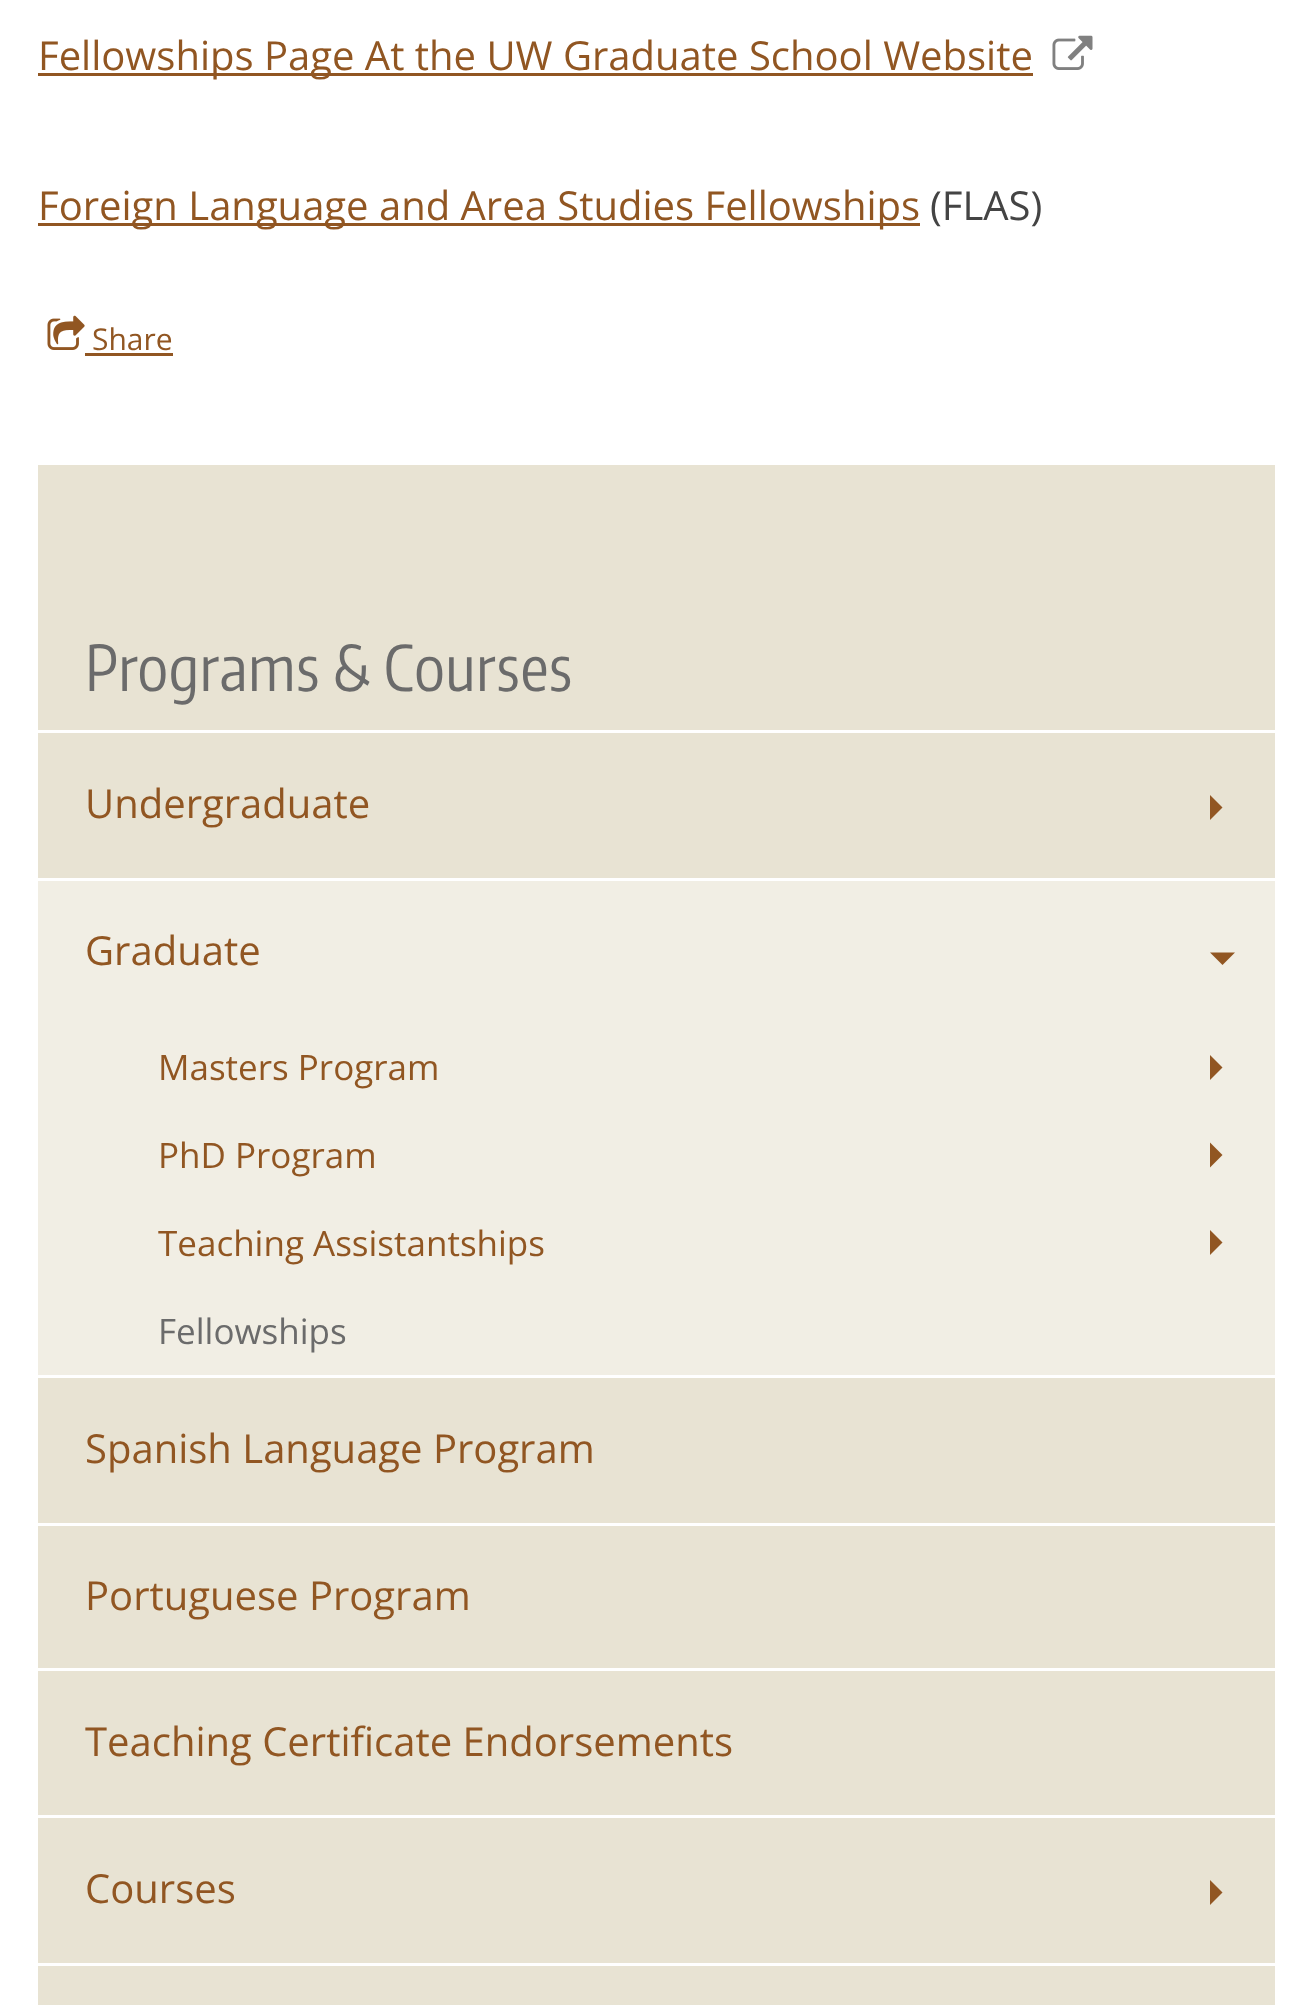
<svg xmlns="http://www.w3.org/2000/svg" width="1311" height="2005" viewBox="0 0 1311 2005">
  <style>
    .t1 { font: 40px Open Sans; fill: #915622; }
    .t2 { font: 40px Open Sans; fill: #444; }
    .t3 { font: 30px Open Sans; fill: #915622; }
    .t4 { font: 62.5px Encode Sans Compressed; letter-spacing: 0.75px; fill: #6b6b6b; }
    .t5 { font: 35px Open Sans; fill: #915622; }
    .t6 { font: 35px Open Sans; fill: #6b6b6b; }
  </style>
  <rect width="100%" height="100%" fill="#fff"/>
  <rect x="38" y="73" width="995" height="3" fill="#915622"/>
  <text x="38" y="70" class="t1">Fellowships Page At the UW Graduate School Website</text>
  <image x="1052" y="35" width="41" height="35" href="images/1.png"/>
  <rect x="38" y="223" width="882" height="3" fill="#915622"/>
  <text x="38" y="220" class="t1">Foreign Language and Area Studies Fellowships</text>
  <text x="930" y="220" class="t2">(FLAS)</text>
  <image x="47" y="315" width="38" height="35" href="images/2.png"/>
  <text x="92" y="350" class="t3">Share</text>
  <rect x="85" y="353" width="88" height="3" fill="#915622"/>
  <rect x="38" y="465" width="1237" height="1540" fill="#e8e3d3"/>
  <text x="85" y="691" class="t4">Programs &amp; Courses</text>
  <rect x="38" y="730" width="1237" height="3" fill="#fff"/>
  <text x="85" y="818" class="t1">Undergraduate</text>
  <path d="M1210 820V795L1222.5 807.5Z" fill="#915622"/>
  <rect x="38" y="881" width="1237" height="494" fill="#f1eee4"/>
  <rect x="38" y="878" width="1237" height="3" fill="#fff"/>
  <text x="85" y="965" class="t1">Graduate</text>
  <path d="M1210 952.5H1235L1222.5 965Z" fill="#915622"/>
  <text x="158" y="1080" class="t5">Masters Program</text>
  <path d="M1210 1080V1055L1222.5 1067.5Z" fill="#915622"/>
  <text x="158" y="1168" class="t5">PhD Program</text>
  <path d="M1210 1167.5V1142.5L1222.5 1155Z" fill="#915622"/>
  <text x="158" y="1256" class="t5">Teaching Assistantships</text>
  <path d="M1210 1255V1230L1222.5 1242.5Z" fill="#915622"/>
  <text x="158" y="1344" class="t6">Fellowships</text>
  <rect x="38" y="1375" width="1237" height="3" fill="#fff"/>
  <text x="85" y="1463" class="t1">Spanish Language Program</text>
  <rect x="38" y="1523" width="1237" height="3" fill="#fff"/>
  <text x="85" y="1610" class="t1">Portuguese Program</text>
  <rect x="38" y="1668" width="1237" height="3" fill="#fff"/>
  <text x="85" y="1756" class="t1">Teaching Certificate Endorsements</text>
  <rect x="38" y="1815" width="1237" height="3" fill="#fff"/>
  <text x="85" y="1903" class="t1">Courses</text>
  <path d="M1210 1905V1880L1222.5 1892.5Z" fill="#915622"/>
  <rect x="38" y="1963" width="1237" height="3" fill="#fff"/>
</svg>
